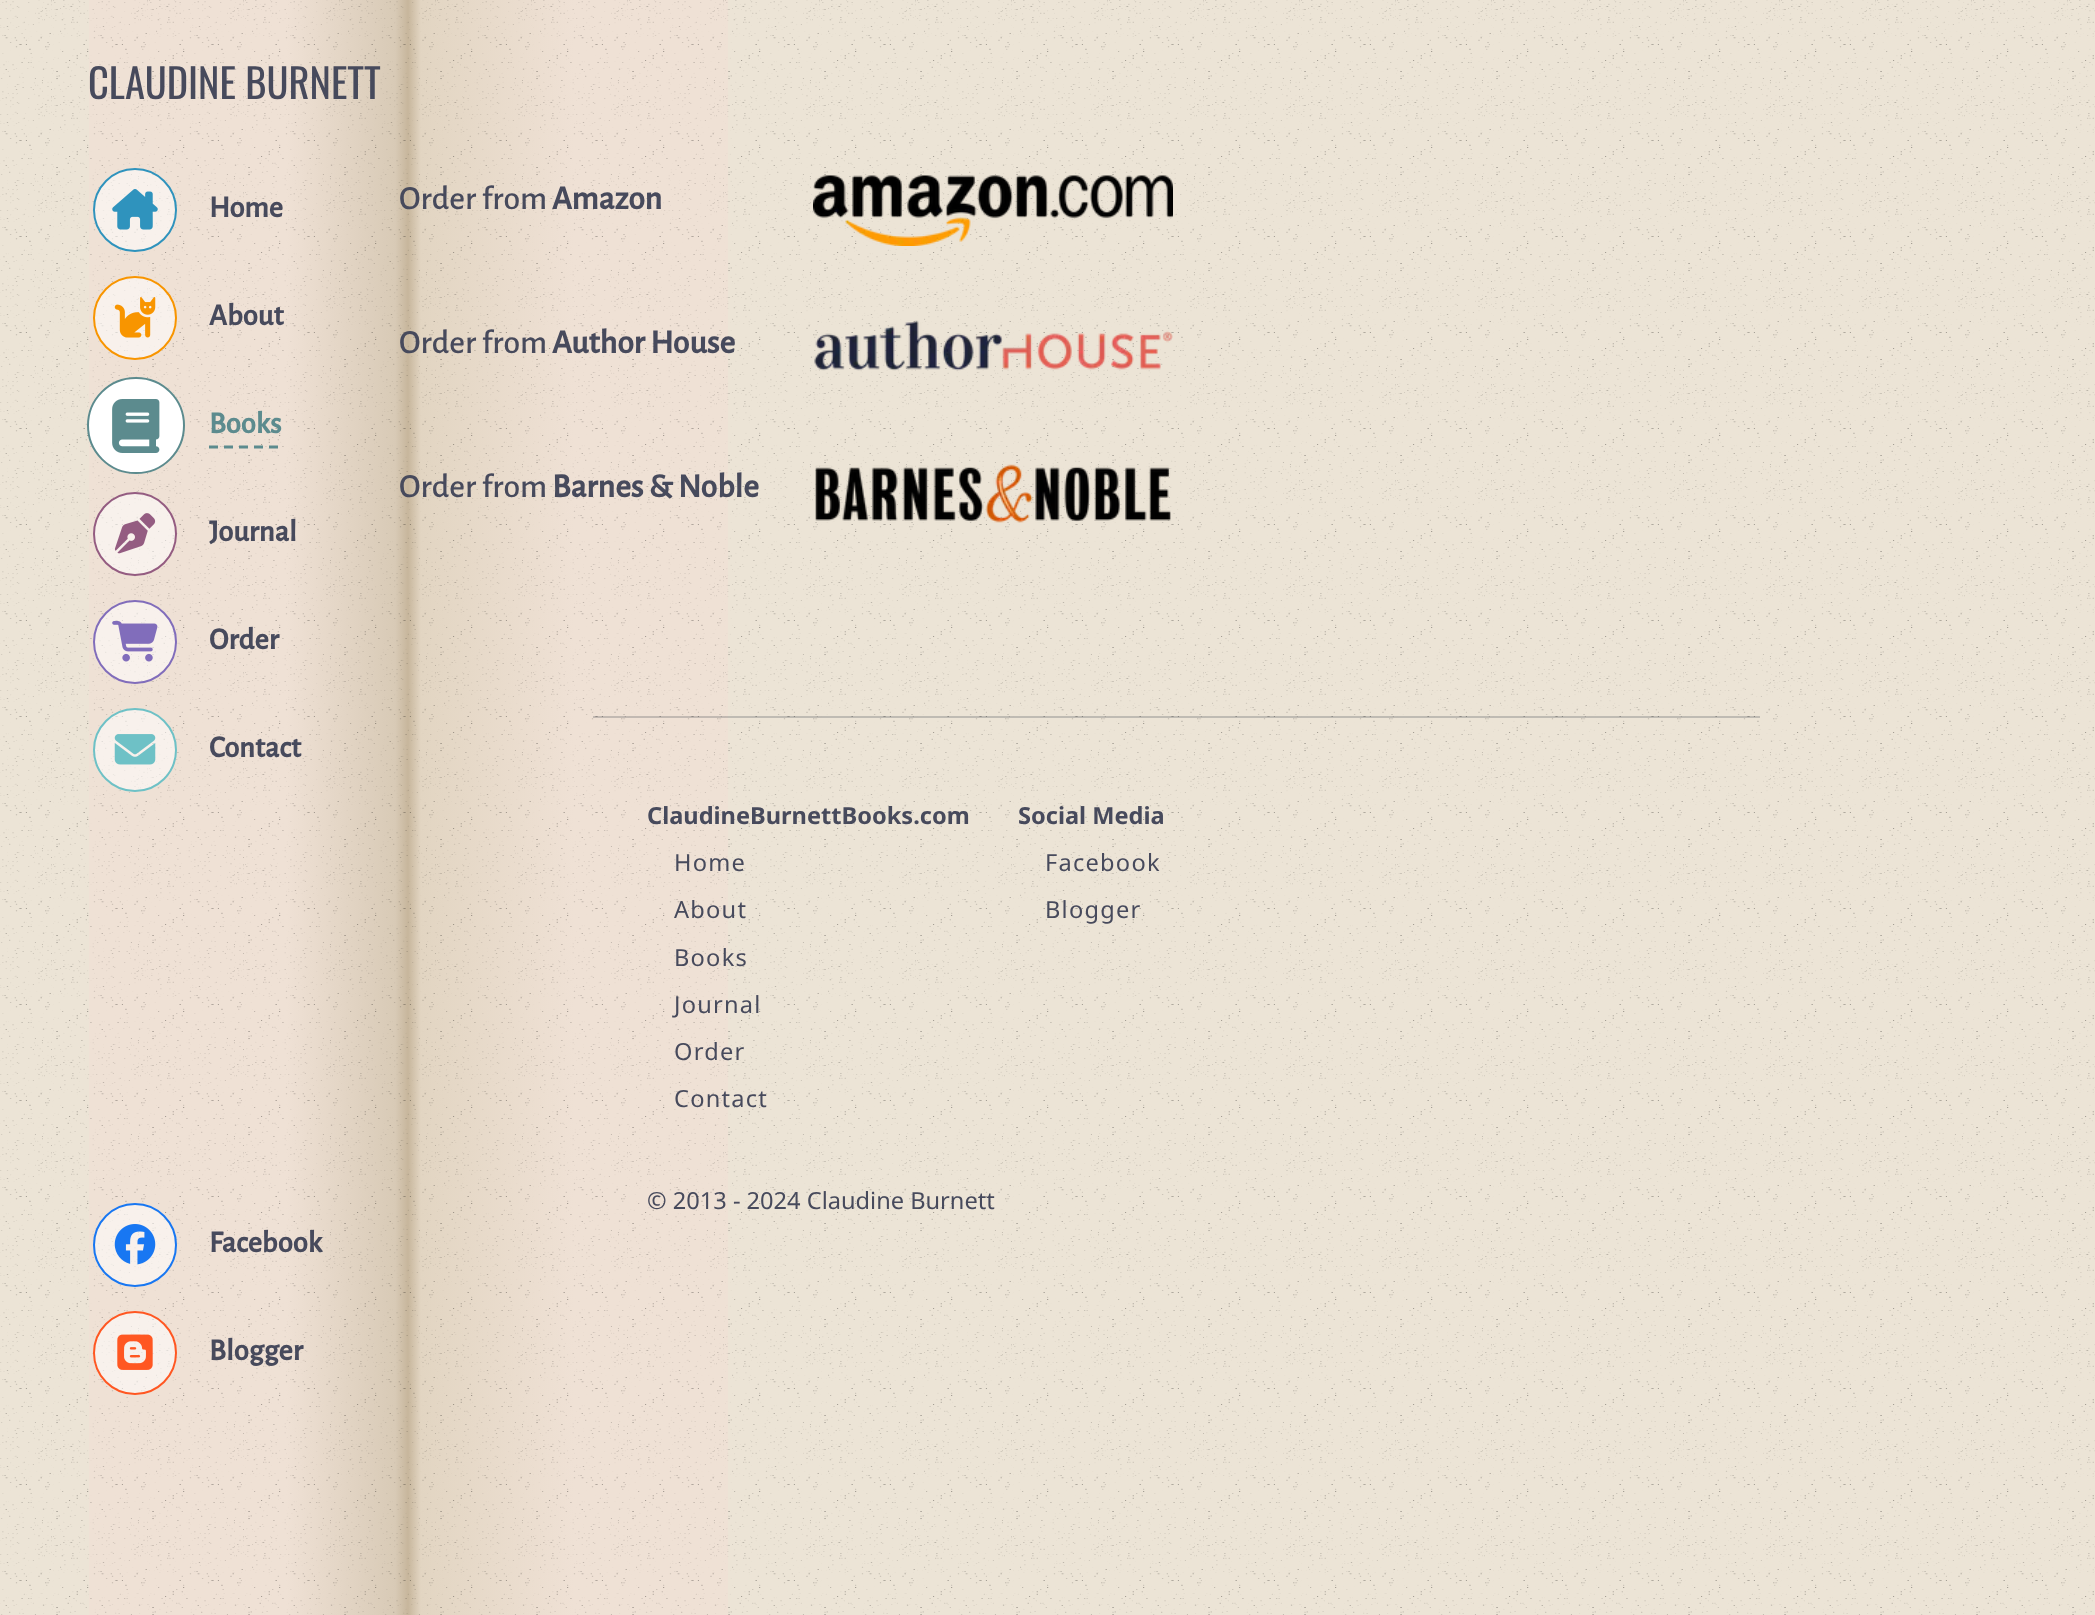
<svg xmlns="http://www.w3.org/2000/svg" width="2095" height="1615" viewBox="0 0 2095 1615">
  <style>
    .t1 { font: 40.5px Oswald; fill: #474a5c; }
    .t2 { font: bold 30.5px Alegreya Sans; fill: #474a5c; }
    .t3 { font: bold 30.5px Alegreya Sans; fill: #5c8b8e; }
    .t4 { font: 500 33.75px Alegreya Sans; fill: #474a5c; }
    .t5 { font: bold 33.75px Alegreya Sans; fill: #474a5c; }
    .t6 { font: bold 23.6px Noto Sans; fill: #474a5c; }
    .t7 { font: 23.6px Noto Sans; letter-spacing: 1.25px; fill: #474a5c; }
    .t8 { font: 23.6px Noto Sans; fill: #474a5c; }
  </style>
  <defs>
    <linearGradient id="g1" gradientUnits="userSpaceOnUse" x1="728" y1="808" x2="88" y2="808"><stop offset="0.24" stop-color="#efe1d5"/><stop offset="0.48" stop-color="#e2d5c2"/><stop offset="0.5" stop-color="#c7b69c"/><stop offset="0.5" stop-color="#a09686"/><stop offset="0.5" stop-color="#c7b69c"/><stop offset="0.52" stop-color="#d8cab6"/><stop offset="0.69" stop-color="#efe1d5"/></linearGradient>
  </defs>
  <rect width="100%" height="100%" fill="#ece4d6"/>
  <rect x="89" y="0" width="639" height="1615" fill="url(#g1)"/>
  <image x="0" y="0" width="2095" height="1615" href="images/1.png"/>
  <text x="88" y="99" class="t1">CLAUDINE BURNETT</text>
  <circle cx="135" cy="210" r="41" fill="#ffffff8c" stroke="#2f93bd" stroke-width="2"/>
  <image x="112" y="189" width="46" height="41" href="images/2.png"/>
  <text x="209" y="217" class="t2">Home</text>
  <circle cx="135" cy="318" r="41" fill="#ffffff8c" stroke="#f89500" stroke-width="2"/>
  <image x="114" y="297" width="42" height="41" href="images/3.png"/>
  <text x="209" y="325" class="t2">About</text>
  <rect x="88" y="378" width="96" height="95" rx="47.5" fill="#fff" stroke="#5c8b8e" stroke-width="2"/>
  <image x="112" y="399" width="48" height="54" href="images/4.png"/>
  <text x="209" y="433" class="t3">Books</text>
  <path d="M209 447H281.5" fill="none" stroke="#5c8b8e" stroke-width="3" stroke-dasharray="9 6"/>
  <circle cx="135" cy="534" r="41" fill="#ffffff8c" stroke="#945c81" stroke-width="2"/>
  <image x="114" y="513" width="42" height="41" href="images/5.png"/>
  <text x="209" y="541" class="t2">Journal</text>
  <circle cx="135" cy="642" r="41" fill="#ffffff8c" stroke="#816dbb" stroke-width="2"/>
  <image x="112" y="621" width="46" height="41" href="images/6.png"/>
  <text x="209" y="649" class="t2">Order</text>
  <circle cx="135" cy="750" r="41" fill="#ffffff8c" stroke="#6ec1c6" stroke-width="2"/>
  <image x="114" y="734" width="42" height="31" href="images/7.png"/>
  <text x="209" y="757" class="t2">Contact</text>
  <circle cx="135" cy="1245" r="41" fill="#ffffff8c" stroke="#1877f2" stroke-width="2"/>
  <image x="114" y="1224" width="42" height="41" href="images/8.png"/>
  <text x="209" y="1252" class="t2">Facebook</text>
  <circle cx="135" cy="1353" r="41" fill="#ffffff8c" stroke="#ff5722" stroke-width="2"/>
  <image x="117" y="1334" width="36" height="36" href="images/9.png"/>
  <text x="209" y="1360" class="t2">Blogger</text>
  <text x="399" y="209" class="t4">Order from</text>
  <text x="552" y="209" class="t5">Amazon</text>
  <image x="813" y="175" width="360" height="71" href="images/10.png"/>
  <text x="399" y="353" class="t4">Order from</text>
  <text x="552" y="353" class="t5">Author House</text>
  <image x="814" y="320" width="359" height="51" href="images/11.png"/>
  <text x="399" y="497" class="t4">Order from</text>
  <text x="552" y="497" class="t5">Barnes &amp; Noble</text>
  <image x="815" y="464" width="356" height="59" href="images/12.png"/>
  <rect x="593" y="716" width="1167" height="2" fill="#0f172a33"/>
  <text x="647" y="824" class="t6">ClaudineBurnettBooks.com</text>
  <text x="674" y="871" class="t7">Home</text>
  <text x="674" y="918" class="t7">About</text>
  <text x="674" y="966" class="t7">Books</text>
  <text x="674" y="1013" class="t7">Journal</text>
  <text x="674" y="1060" class="t7">Order</text>
  <text x="674" y="1107" class="t7">Contact</text>
  <text x="1018" y="824" class="t6">Social Media</text>
  <text x="1045" y="871" class="t7">Facebook</text>
  <text x="1045" y="918" class="t7">Blogger</text>
  <text x="647" y="1209" class="t8">© 2013 - 2024 Claudine Burnett</text>
</svg>
